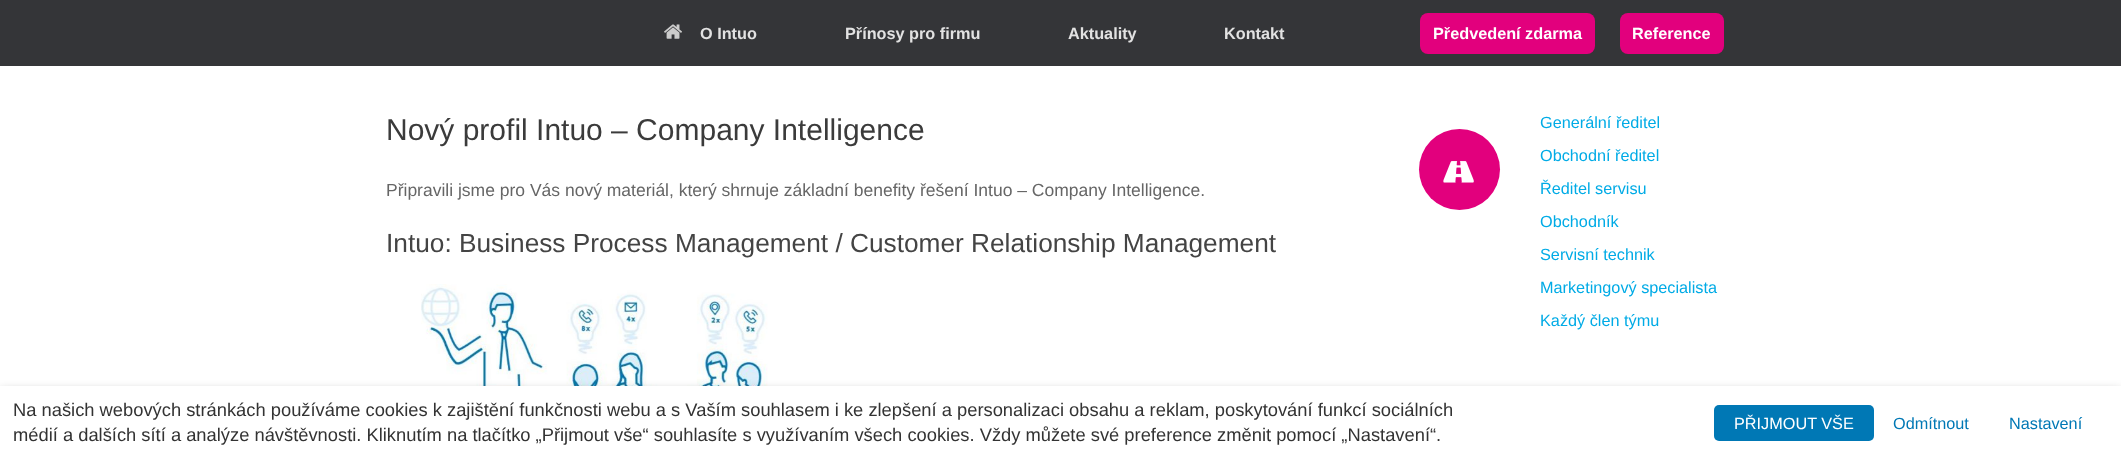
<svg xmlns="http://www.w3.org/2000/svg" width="2121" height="460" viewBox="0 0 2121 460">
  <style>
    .t1 { font: bold 16.25px Liberation Sans; fill: #e2e2e2; }
    .t2 { font: bold 16.25px Liberation Sans; fill: #fff; }
    .t3 { font: 30px Liberation Sans; fill: #3b3b3b; }
    .t4 { font: 17.5px Liberation Sans; fill: #666; }
    .t5 { font: 26.25px Liberation Sans; fill: #444; }
    .t6 { font: 16.25px Liberation Sans; fill: #00abe6; }
    .t7 { font: 18.33px Liberation Sans; fill: #333; }
    .t8 { font: 16.25px Liberation Sans; fill: #fff; }
    .t9 { font: 16.25px Liberation Sans; fill: #0078b5; }
  </style>
  <rect width="100%" height="100%" fill="#fff"/>
  <rect x="0" y="0" width="2121" height="66" fill="#343538"/>
  <image x="664" y="24" width="18" height="15" href="images/1.png"/>
  <text x="700" y="39" class="t1">O Intuo</text>
  <text x="845" y="39" class="t1">Přínosy pro firmu</text>
  <text x="1068" y="39" class="t1">Aktuality</text>
  <text x="1224" y="39" class="t1">Kontakt</text>
  <rect x="1420" y="13" width="175" height="41" rx="8" fill="#e2007d"/>
  <text x="1433" y="39" class="t2">Předvedení zdarma</text>
  <rect x="1620" y="13" width="104" height="41" rx="8" fill="#e2007d"/>
  <text x="1632" y="39" class="t2">Reference</text>
  <text x="386" y="140" class="t3">Nový profil Intuo – Company Intelligence</text>
  <text x="386" y="196" class="t4">Připravili jsme pro Vás nový materiál, který shrnuje základní benefity řešení Intuo – Company Intelligence.</text>
  <text x="386" y="252" class="t5">Intuo: Business Process Management / Customer Relationship Management</text>
  <image x="421" y="284" width="406" height="102" href="images/2.png"/>
  <circle cx="1459.5" cy="169.5" r="40.5" fill="#e2007d"/>
  <image x="1443" y="161" width="31" height="22" href="images/3.png"/>
  <text x="1540" y="128" class="t6">Generální ředitel</text>
  <text x="1540" y="161" class="t6">Obchodní ředitel</text>
  <text x="1540" y="194" class="t6">Ředitel servisu</text>
  <text x="1540" y="227" class="t6">Obchodník</text>
  <text x="1540" y="260" class="t6">Servisní technik</text>
  <text x="1540" y="293" class="t6">Marketingový specialista</text>
  <text x="1540" y="326" class="t6">Každý člen týmu</text>
  <rect x="0" y="393" width="2121" height="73" fill="#00000080" filter="blur(6px)"/>
  <rect x="0" y="386" width="2121" height="74" fill="#fff"/>
  <text x="13" y="416" class="t7">Na našich webových stránkách používáme cookies k zajištění funkčnosti webu a s Vaším souhlasem i ke zlepšení a personalizaci obsahu a reklam, poskytování funkcí sociálních</text>
  <text x="13" y="441" class="t7">médií a dalších sítí a analýze návštěvnosti. Kliknutím na tlačítko „Přijmout vše“ souhlasíte s využívaním všech cookies. Vždy můžete své preference změnit pomocí „Nastavení“.</text>
  <rect x="1714" y="405" width="160" height="36" rx="5" fill="#0078b5"/>
  <text x="1734" y="429" class="t8">PŘIJMOUT VŠE</text>
  <text x="1893" y="429" class="t9">Odmítnout</text>
  <text x="2009" y="429" class="t9">Nastavení</text>
</svg>
